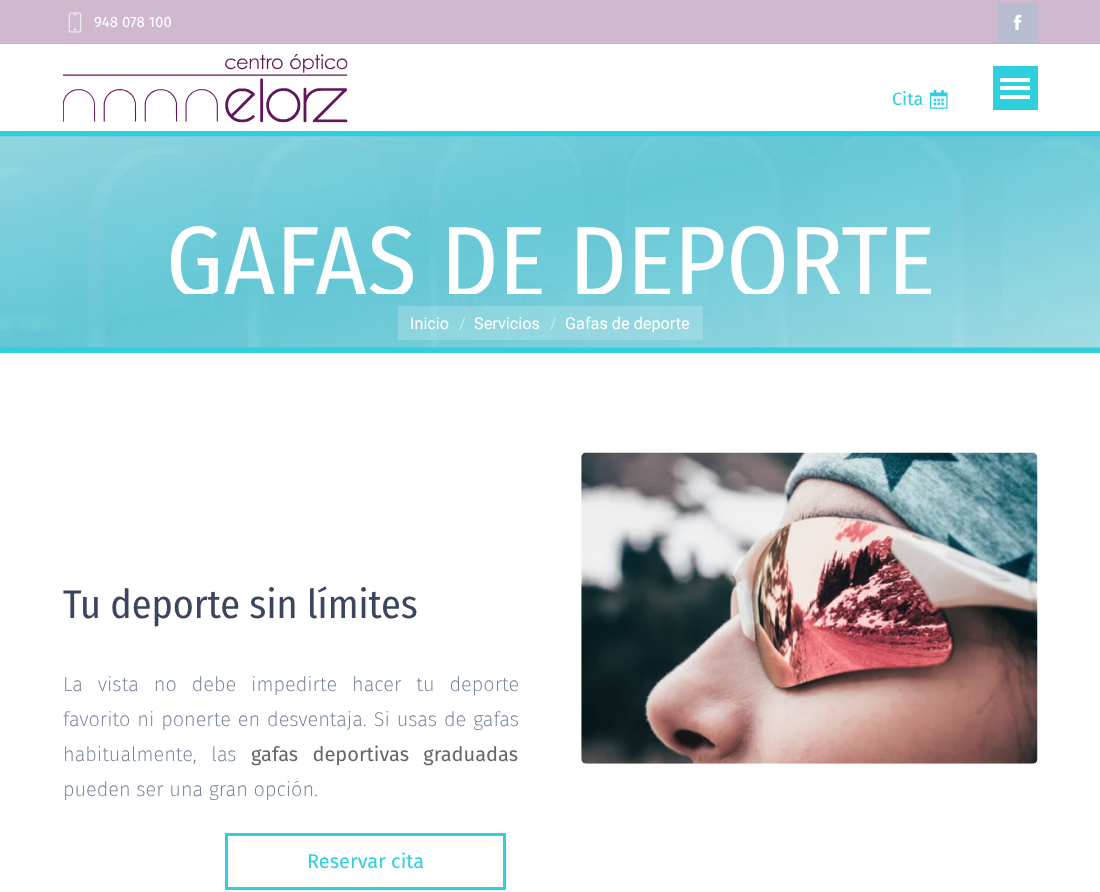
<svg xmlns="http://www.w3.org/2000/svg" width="1100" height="892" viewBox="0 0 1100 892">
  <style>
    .t1 { font: 15px Fira Sans; fill: #fff; }
    .t2 { font: 18px Fira Sans; fill: #2fcfde; }
    .t3 { font: 100px Fira Sans Condensed; fill: #fff; }
    .t4 { font: 16.25px Roboto; fill: #fff; }
    .t5 { font: 16.25px Roboto; fill: #c7eaef; }
    .t6 { font: 40px Fira Sans Condensed; fill: #39465d; }
    .t7 { font: 200 20px Fira Sans; fill: #6a7990; }
    .t8 { font: 20px Fira Sans; fill: #666; }
    .t9 { font: 20px Fira Sans; fill: #2fcfde; }
  </style>
  <defs>
    <clipPath id="clip1"><rect x="166" y="206" width="768" height="88"/></clipPath>
  </defs>
  <rect width="100%" height="100%" fill="#fff"/>
  <rect x="0" y="0" width="1100" height="43" fill="#d0b9ce"/>
  <image x="68" y="12" width="14" height="21" href="images/1.png"/>
  <text x="94" y="27" class="t1">948 078 100</text>
  <rect x="998" y="3" width="40" height="40" fill="#b8bcd0"/>
  <image x="1013" y="15" width="9" height="15" href="images/2.png"/>
  <rect x="0" y="43" width="1100" height="1" fill="#a9bed2"/>
  <image x="63" y="54" width="285" height="69" href="images/3.png"/>
  <text x="892" y="105" class="t2">Cita</text>
  <image x="930" y="90" width="18" height="19" href="images/4.png"/>
  <rect x="993" y="66" width="45" height="44" fill="#2fcfde"/>
  <rect x="1000" y="78" width="30" height="4" fill="#fff"/>
  <rect x="1000" y="86" width="30" height="4" fill="#fff"/>
  <rect x="1000" y="95" width="30" height="4" fill="#fff"/>
  <rect x="0" y="131" width="1100" height="222" fill="#2fcfde"/>
  <image x="0" y="136" width="1100" height="212" href="images/5.png"/>
  <g clip-path="url(#clip1)">
    <text x="166" y="296" class="t3">GAFAS DE DEPORTE</text>
  </g>
  <rect x="398" y="306" width="305" height="34" fill="#ffffff33"/>
  <text x="410" y="329" class="t4">Inicio</text>
  <text x="459" y="329" class="t5">/</text>
  <text x="474" y="329" class="t4">Servicios</text>
  <text x="550" y="329" class="t5">/</text>
  <text x="565" y="329" class="t4">Gafas de deporte</text>
  <text x="63" y="618" class="t6">Tu deporte sin límites</text>
  <text x="63" y="691" word-spacing="9.25" class="t7">La vista no debe impedirte hacer tu deporte</text>
  <text x="63" y="726" word-spacing="1.25" class="t7">favorito ni ponerte en desventaja. Si usas de gafas</text>
  <text x="63" y="761" word-spacing="9" class="t7">habitualmente, las</text>
  <text x="251" y="761" word-spacing="9" class="t8">gafas deportivas graduadas</text>
  <text x="63" y="796" class="t7">pueden ser una gran opción.</text>
  <rect x="226.5" y="834.5" width="278" height="54" fill="none" stroke="#2fcfde" stroke-width="3"/>
  <text x="307" y="868" class="t9">Reservar cita</text>
  <image x="581" y="452" width="457" height="312" href="images/6.png"/>
</svg>
